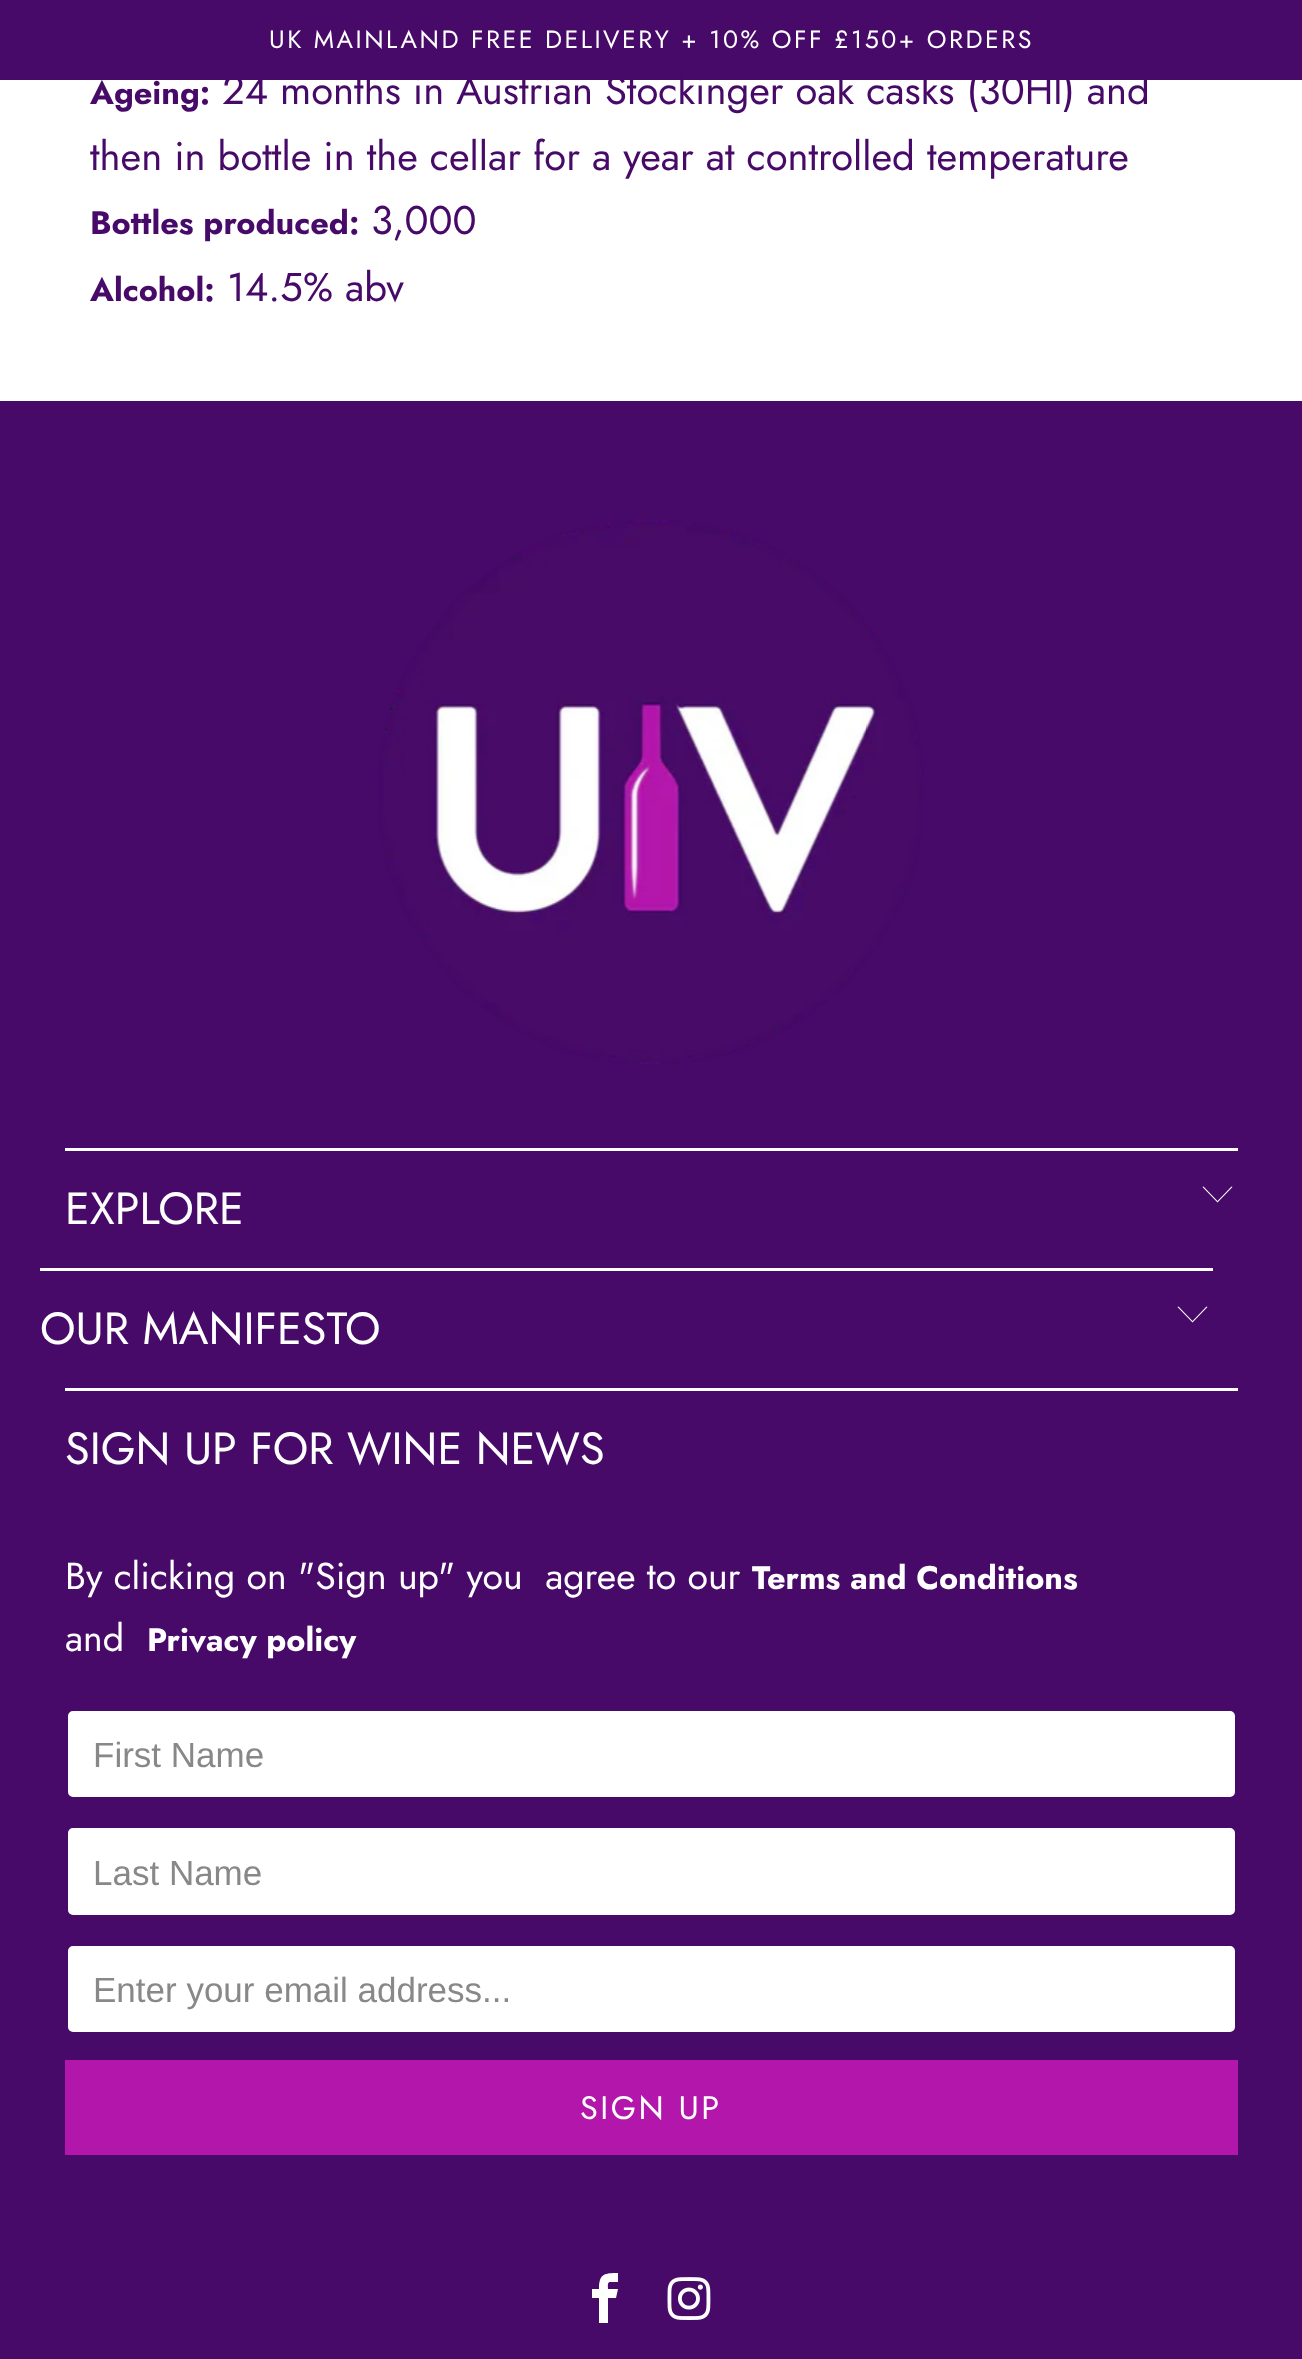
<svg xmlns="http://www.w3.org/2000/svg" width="1302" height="2359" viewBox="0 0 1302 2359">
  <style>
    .t1 { font: 25px Jost; letter-spacing: 2.5px; fill: #fff; }
    .t2 { font: bold 32.5px Jost; fill: #470a68; }
    .t3 { font: 40px Jost; fill: #470a68; }
    .t4 { font: 45px Jost; fill: #fff; }
    .t5 { font: 37.5px Jost; fill: #fff; }
    .t6 { font: bold 32.5px Jost; fill: #fff; }
    .t7 { font: 35px Liberation Sans; fill: #888; }
    .t8 { font: 32.5px Jost; letter-spacing: 2.5px; fill: #fff; }
  </style>
  <rect width="100%" height="100%" fill="#fff"/>
  <rect x="0" y="0" width="1302" height="80" fill="#470a68"/>
  <text x="269" y="48" class="t1">UK MAINLAND FREE DELIVERY + 10% OFF £150+ ORDERS</text>
  <text x="90" y="104" class="t2">Ageing:</text>
  <text x="222" y="104" class="t3">24 months in Austrian Stockinger oak casks (30Hl) and</text>
  <text x="90" y="170" class="t3">then in bottle in the cellar for a year at controlled temperature</text>
  <text x="90" y="234" class="t2">Bottles produced:</text>
  <text x="371" y="234" class="t3">3,000</text>
  <text x="90" y="301" class="t2">Alcohol:</text>
  <text x="227" y="301" class="t3">14.5% abv</text>
  <rect x="0" y="401" width="1302" height="1958" fill="#470a68"/>
  <image x="379" y="520" width="545" height="544" href="images/1.png"/>
  <rect x="65" y="1148" width="1173" height="3" fill="#fff"/>
  <text x="65" y="1224" class="t4">EXPLORE</text>
  <path d="M1217.5 1202.5L1202.5 1187L1203.5 1186.5L1217.5 1201L1231.5 1186.5L1232.5 1187Z" fill="#fff"/>
  <rect x="40" y="1268" width="1173" height="3" fill="#fff"/>
  <text x="40" y="1344" class="t4">OUR MANIFESTO</text>
  <path d="M1192.5 1322.5L1177.5 1307L1178.5 1306.5L1192.5 1321L1206.5 1306.5L1207.5 1307Z" fill="#fff"/>
  <rect x="65" y="1388" width="1173" height="3" fill="#fff"/>
  <text x="65" y="1464" class="t4">SIGN UP FOR WINE NEWS</text>
  <text x="65" y="1589" class="t5" xml:space="preserve">By clicking on "Sign up" you  agree to our</text>
  <text x="752" y="1589" class="t6">Terms and Conditions</text>
  <text x="65" y="1651" class="t5">and</text>
  <text x="147" y="1651" class="t6">Privacy policy</text>
  <rect x="66.5" y="1709.5" width="1170" height="89" rx="6.5" fill="#fff" stroke="#470a68" stroke-width="3"/>
  <text x="93" y="1767" class="t7">First Name</text>
  <rect x="66.5" y="1826.5" width="1170" height="90" rx="6.5" fill="#fff" stroke="#470a68" stroke-width="3"/>
  <text x="93" y="1885" class="t7">Last Name</text>
  <rect x="66.5" y="1944.5" width="1170" height="89" rx="6.5" fill="#fff" stroke="#470a68" stroke-width="3"/>
  <text x="93" y="2002" class="t7">Enter your email address...</text>
  <rect x="65" y="2060" width="1173" height="95" fill="#b216ab"/>
  <text x="580" y="2119" class="t8">SIGN UP</text>
  <path d="M610 2282H618V2273C604 2273 599 2274 599 2289H592V2298H599V2323H608V2298H616L618 2289H608C608 2288 607 2282 610 2282Z" fill="#fff"/>
  <image x="667" y="2277" width="44" height="43" href="images/2.png"/>
</svg>
